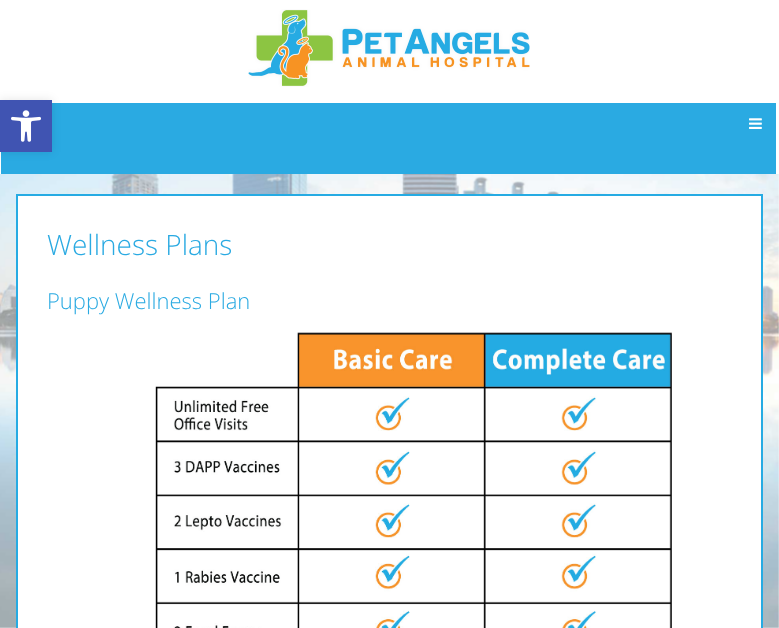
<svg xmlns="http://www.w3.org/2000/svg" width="779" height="628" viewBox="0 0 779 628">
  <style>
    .t1 { font: 300 28px Open Sans; fill: #2aaae2; }
    .t2 { font: 300 22px Open Sans; fill: #2aaae2; }
  </style>
  <rect width="100%" height="100%" fill="#fff"/>
  <image x="0" y="174" width="779" height="454" href="images/1.png"/>
  <rect x="1" y="103" width="775" height="71" fill="#2aaae2"/>
  <rect x="0" y="100" width="52" height="52" fill="#0000001a" filter="blur(5px)"/>
  <rect x="0" y="100" width="52" height="52" fill="#4054b2"/>
  <image x="11" y="110" width="30" height="32" href="images/2.png"/>
  <image x="248" y="9" width="282" height="78" href="images/3.png"/>
  <image x="749" y="118" width="13" height="11" href="images/4.png"/>
  <rect x="17" y="195" width="745" height="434" fill="#fff" stroke="#26abe3" stroke-width="2"/>
  <text x="47" y="255" class="t1">Wellness Plans</text>
  <text x="47" y="309" class="t2">Puppy Wellness Plan</text>
  <image x="155" y="332" width="517" height="296" href="images/5.png"/>
</svg>
